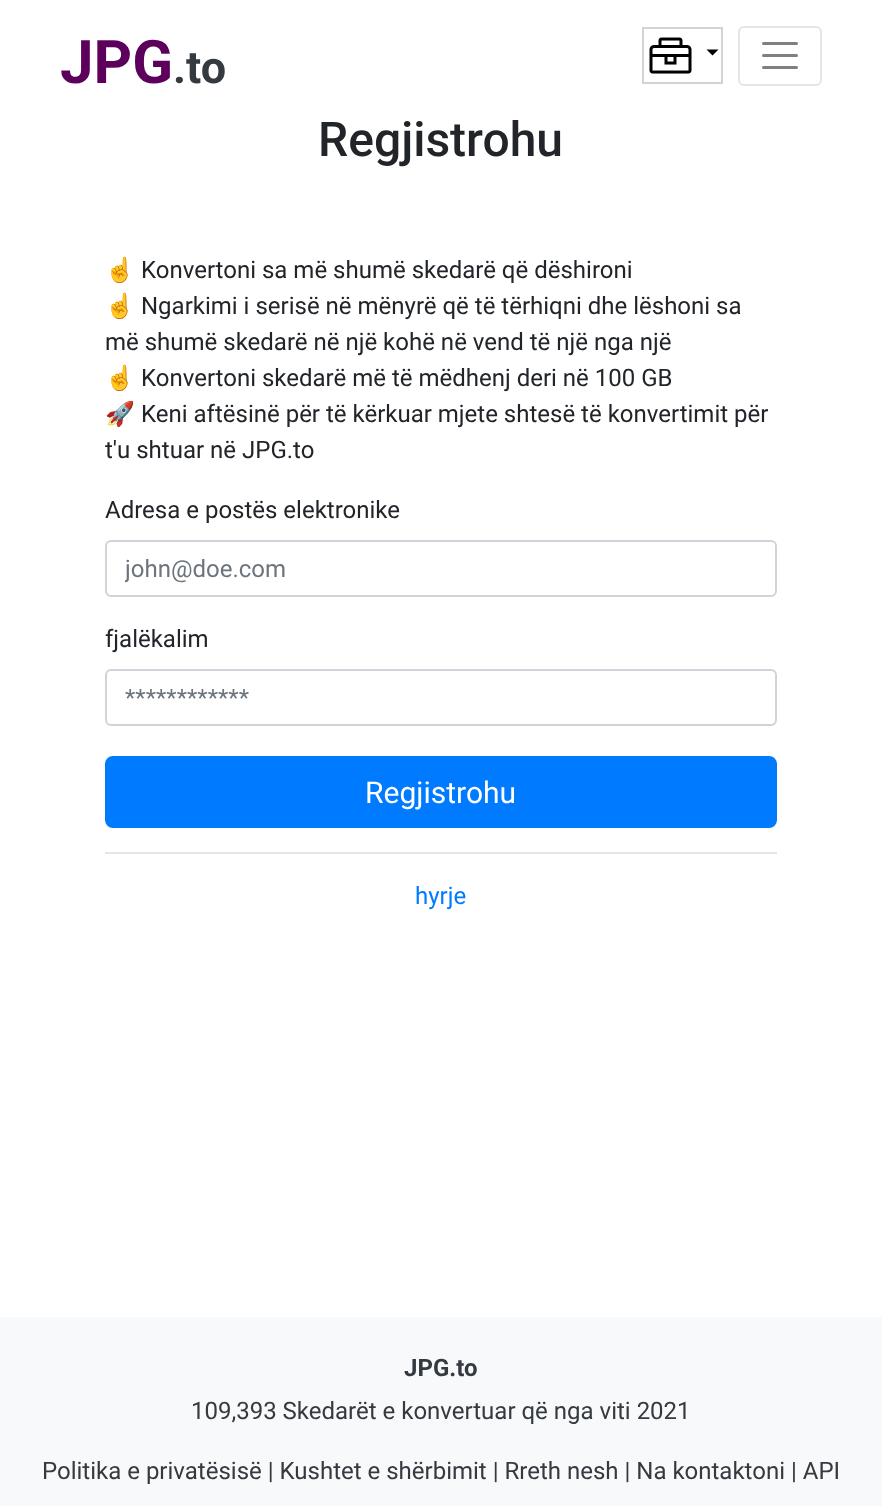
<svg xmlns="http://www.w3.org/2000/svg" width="882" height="1506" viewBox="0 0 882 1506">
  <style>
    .t1 { font: bold 60px Roboto; fill: #5c005c; }
    .t2 { font: bold 45px Roboto; fill: #343a40; }
    .t3 { font: 500 48px Roboto; fill: #212529; }
    .t4 { font: 24px Noto Color Emoji; fill: #212529; }
    .t5 { font: 24px Roboto; fill: #212529; }
    .t6 { font: 24px Roboto; fill: #6c757d; }
    .t7 { font: 30px Roboto; fill: #fff; }
    .t8 { font: 24px Roboto; fill: #007bff; }
    .t9 { font: bold 24px Roboto; fill: #343a40; }
    .t10 { font: 24px Roboto; fill: #343a40; }
  </style>
  <defs>
    <clipPath id="clip1"><rect x="125" y="555" width="633" height="29"/></clipPath>
  </defs>
  <rect width="100%" height="100%" fill="#fff"/>
  <text x="60" y="83" class="t1">JPG</text>
  <text x="173" y="83" class="t2">.to</text>
  <rect x="643" y="28" width="79" height="55" fill="none" stroke="#d3d3d3" stroke-width="2"/>
  <image x="649" y="37" width="43" height="37" href="images/1.png"/>
  <path d="M706.5 49.5H718.5L712.5 55.5Z" fill="#000"/>
  <rect x="739" y="27" width="82" height="58" rx="5" fill="none" stroke="#e6e6e6" stroke-width="2"/>
  <path d="M763.5 43.5H796.5M763.5 55.5H796.5M763.5 67.5H796.5" fill="none" stroke="#808080" stroke-width="3" stroke-linecap="round"/>
  <text x="318" y="156" class="t3">Regjistrohu</text>
  <text x="105" y="278" class="t4">☝</text>
  <text x="141" y="278" class="t5">Konvertoni sa më shumë skedarë që dëshironi</text>
  <text x="105" y="314" class="t4">☝</text>
  <text x="141" y="314" class="t5">Ngarkimi i serisë në mënyrë që të tërhiqni dhe lëshoni sa</text>
  <text x="105" y="350" class="t5">më shumë skedarë në një kohë në vend të një nga një</text>
  <text x="105" y="386" class="t4">☝</text>
  <text x="141" y="386" class="t5">Konvertoni skedarë më të mëdhenj deri në 100 GB</text>
  <text x="105" y="422" class="t4">🚀</text>
  <text x="141" y="422" class="t5">Keni aftësinë për të kërkuar mjete shtesë të konvertimit për</text>
  <text x="105" y="458" class="t5">t'u shtuar në JPG.to</text>
  <text x="105" y="518" class="t5">Adresa e postës elektronike</text>
  <rect x="106" y="541" width="670" height="55" rx="5" fill="none" stroke="#ced4da" stroke-width="2"/>
  <g clip-path="url(#clip1)">
    <text x="125" y="577" class="t6">john@doe.com</text>
  </g>
  <text x="105" y="647" class="t5">fjalëkalim</text>
  <rect x="106" y="670" width="670" height="55" rx="5" fill="none" stroke="#ced4da" stroke-width="2"/>
  <text x="125" y="706" class="t6">************</text>
  <rect x="106" y="757" width="670" height="70" rx="7" fill="#007bff" stroke="#007bff" stroke-width="2"/>
  <text x="365" y="803" class="t7">Regjistrohu</text>
  <rect x="105" y="852" width="672" height="2" fill="#e6e6e6"/>
  <text x="415" y="904" class="t8">hyrje</text>
  <rect x="0" y="1317" width="882" height="189" fill="#f8f9fa"/>
  <text x="404" y="1376" class="t9">JPG.to</text>
  <text x="191" y="1419" class="t10">109,393 Skedarët e konvertuar që nga viti 2021</text>
  <text x="42" y="1479" class="t10">Politika e privatësisë | Kushtet e shërbimit | Rreth nesh | Na kontaktoni | API</text>
</svg>
